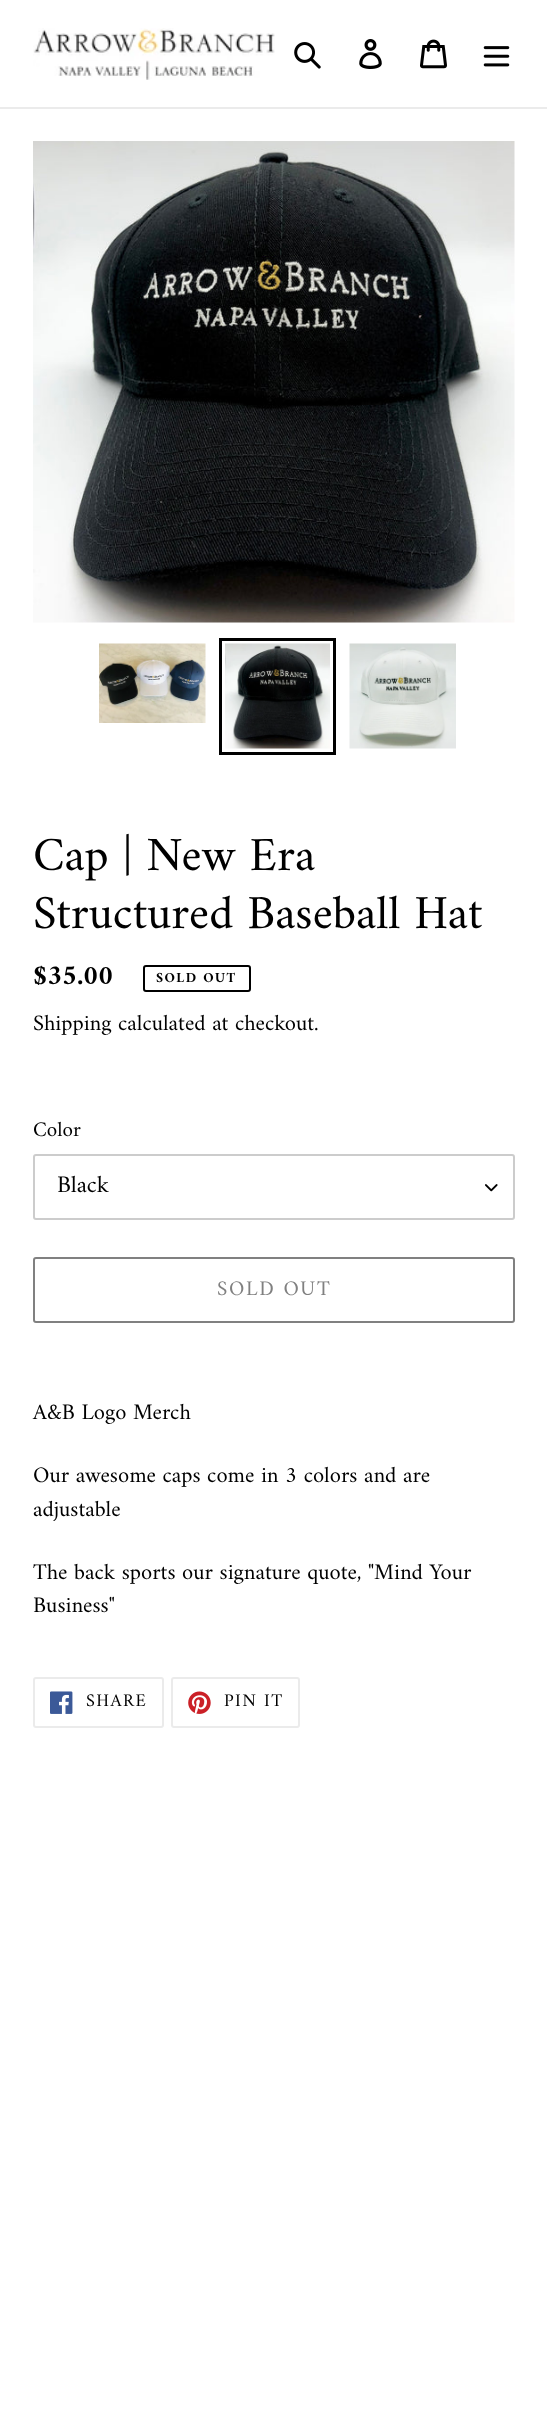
<svg xmlns="http://www.w3.org/2000/svg" width="547" height="2410" viewBox="0 0 547 2410">
  <style>
    .t1 { font: 48px Amiri; fill: #000; }
    .t2 { font: bold 28px Amiri; fill: #000; }
    .t3 { font: bold 14px Amiri; letter-spacing: 1.5px; fill: #000; }
    .t4 { font: 22.5px Amiri; fill: #000; }
    .t5 { font: 21px Amiri; fill: #000; }
    .t6 { font: 24px Amiri; fill: #000; }
    .t7 { font: 21px Amiri; letter-spacing: 1.75px; fill: #808080; }
    .t8 { font: 18px Amiri; letter-spacing: 1.5px; fill: #000; }
  </style>
  <rect width="100%" height="100%" fill="#fff"/>
  <rect x="0" y="107" width="547" height="2" fill="#ebebeb"/>
  <image x="33" y="28" width="242" height="52" href="images/1.png"/>
  <image x="294" y="42" width="27" height="27" href="images/2.png"/>
  <image x="359" y="39" width="23" height="30" href="images/3.png"/>
  <image x="420" y="39" width="27" height="30" href="images/4.png"/>
  <image x="483" y="46" width="27" height="21" href="images/5.png"/>
  <image x="33" y="141" width="482" height="482" href="images/6.png"/>
  <image x="99" y="643" width="107" height="80" href="images/7.png"/>
  <rect x="220.5" y="639.5" width="114" height="114" fill="none" stroke="#000" stroke-width="3"/>
  <image x="225" y="643" width="105" height="106" href="images/8.png"/>
  <image x="349" y="643" width="107" height="106" href="images/9.png"/>
  <text x="33" y="870" class="t1">Cap | New Era</text>
  <text x="33" y="928" class="t1">Structured Baseball Hat</text>
  <text x="33" y="984" class="t2">$35.00</text>
  <rect x="144" y="966" width="106" height="25" rx="2" fill="none" stroke="#000" stroke-width="2"/>
  <text x="156" y="982" class="t3">SOLD OUT</text>
  <text x="33" y="1030" class="t4">Shipping calculated at checkout.</text>
  <text x="33" y="1136" class="t5">Color</text>
  <image x="485" y="1184" width="13" height="8" href="images/10.png"/>
  <rect x="34" y="1155" width="480" height="64" rx="2" fill="none" stroke="#ccc" stroke-width="2"/>
  <text x="57" y="1192" class="t6">Black</text>
  <rect x="34" y="1258" width="480" height="64" rx="2" fill="none" stroke="#808080" stroke-width="2"/>
  <text x="217" y="1295" class="t7">SOLD OUT</text>
  <text x="33" y="1419" class="t4">A&amp;B Logo Merch</text>
  <text x="33" y="1482" class="t4">Our awesome caps come in 3 colors and are</text>
  <text x="33" y="1516" class="t4">adjustable</text>
  <text x="33" y="1579" class="t4">The back sports our signature quote, "Mind Your</text>
  <text x="33" y="1612" class="t4">Business"</text>
  <rect x="34" y="1678" width="129" height="49" rx="2" fill="none" stroke="#ebebeb" stroke-width="2"/>
  <image x="50" y="1691" width="23" height="23" href="images/11.png"/>
  <text x="86" y="1706" class="t8">SHARE</text>
  <rect x="172" y="1678" width="127" height="49" rx="2" fill="none" stroke="#ebebeb" stroke-width="2"/>
  <image x="188" y="1691" width="23" height="23" href="images/12.png"/>
  <text x="224" y="1706" class="t8">PIN IT</text>
</svg>
